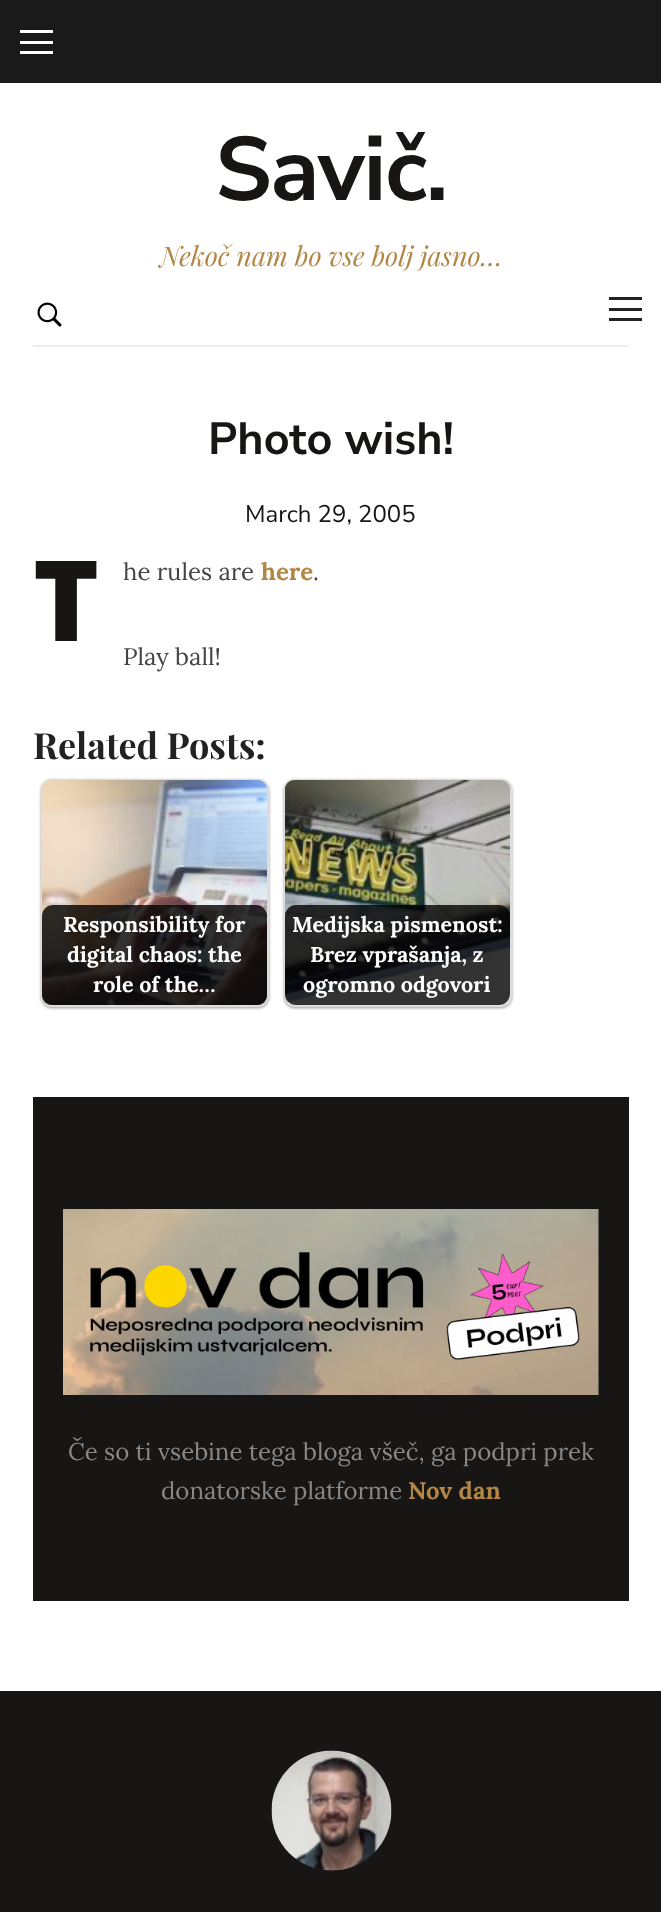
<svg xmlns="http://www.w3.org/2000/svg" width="661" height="1912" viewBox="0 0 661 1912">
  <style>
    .t1 { font: bold 90px Nunito Sans; letter-spacing: -1.5px; fill: #171615; }
    .t2 { font: italic 27px Playfair Display; fill: #b28645; }
    .t3 { font: bold 45px Nunito Sans; fill: #171615; }
    .t4 { font: 24px Nunito Sans; fill: #171615; }
    .t5 { font: 900 112px Noto Sans; fill: #171615; }
    .t6 { font: 24px Lora; fill: #444; }
    .t7 { font: bold 24px Lora; fill: #b28645; }
    .t8 { font: bold 36px Playfair Display; fill: #222; }
    .t9 { font: bold 21.5px Lora; fill: #fff; }
    .t10 { font: 24px Lora; fill: #888; }
  </style>
  <rect width="100%" height="100%" fill="#fff"/>
  <rect x="0" y="0" width="661" height="83" fill="#1a1a1a"/>
  <rect x="20" y="30" width="33" height="3" fill="#fff"/>
  <rect x="20" y="41" width="33" height="3" fill="#fff"/>
  <rect x="20" y="51" width="33" height="3" fill="#fff"/>
  <text x="215" y="200" class="t1">Savič.</text>
  <text x="160" y="266" class="t2">Nekoč nam bo vse bolj jasno…</text>
  <image x="37" y="302" width="25" height="25" href="images/1.png"/>
  <rect x="609" y="297" width="33" height="3" fill="#222"/>
  <rect x="609" y="308" width="33" height="3" fill="#222"/>
  <rect x="609" y="318" width="33" height="3" fill="#222"/>
  <rect x="33" y="345" width="596" height="2" fill="#eee"/>
  <text x="208" y="454" class="t3">Photo wish!</text>
  <text x="245" y="522" class="t4">March 29, 2005</text>
  <text x="33" y="641" class="t5">T</text>
  <text x="123" y="580" class="t6">he rules are</text>
  <text x="261" y="580" class="t7">here</text>
  <text x="313" y="580" class="t6">.</text>
  <text x="123" y="665" class="t6">Play ball!</text>
  <text x="33" y="759" class="t8">Related Posts:</text>
  <rect x="41" y="780" width="228" height="228" rx="11" fill="#00000066" filter="blur(1.5px)"/>
  <rect x="42" y="780" width="226" height="226" rx="10" fill="none" stroke="#ddd" stroke-width="2"/>
  <image x="42" y="780" width="225" height="225" href="images/2.png"/>
  <rect x="42" y="905" width="225" height="100" rx="11" fill="#000000cc"/>
  <text x="63" y="932" class="t9">Responsibility for</text>
  <text x="67" y="962" class="t9">digital chaos: the</text>
  <text x="93" y="992" class="t9">role of the…</text>
  <rect x="284" y="780" width="228" height="228" rx="11" fill="#00000066" filter="blur(1.5px)"/>
  <rect x="285" y="780" width="226" height="226" rx="10" fill="none" stroke="#ddd" stroke-width="2"/>
  <image x="285" y="780" width="225" height="225" href="images/3.png"/>
  <rect x="285" y="905" width="225" height="100" rx="11" fill="#000000cc"/>
  <text x="292" y="932" class="t9">Medijska pismenost:</text>
  <text x="310" y="962" class="t9">Brez vprašanja, z</text>
  <text x="303" y="992" class="t9">ogromno odgovori</text>
  <rect x="33" y="1097" width="596" height="504" fill="#171615"/>
  <image x="63" y="1209" width="536" height="186" href="images/4.png"/>
  <text x="68" y="1460" class="t10">Če so ti vsebine tega bloga všeč, ga podpri prek</text>
  <text x="161" y="1499" class="t10">donatorske platforme</text>
  <text x="408" y="1499" class="t7">Nov dan</text>
  <rect x="0" y="1691" width="661" height="221" fill="#171615"/>
  <image x="271" y="1750" width="121" height="121" href="images/5.png"/>
</svg>
